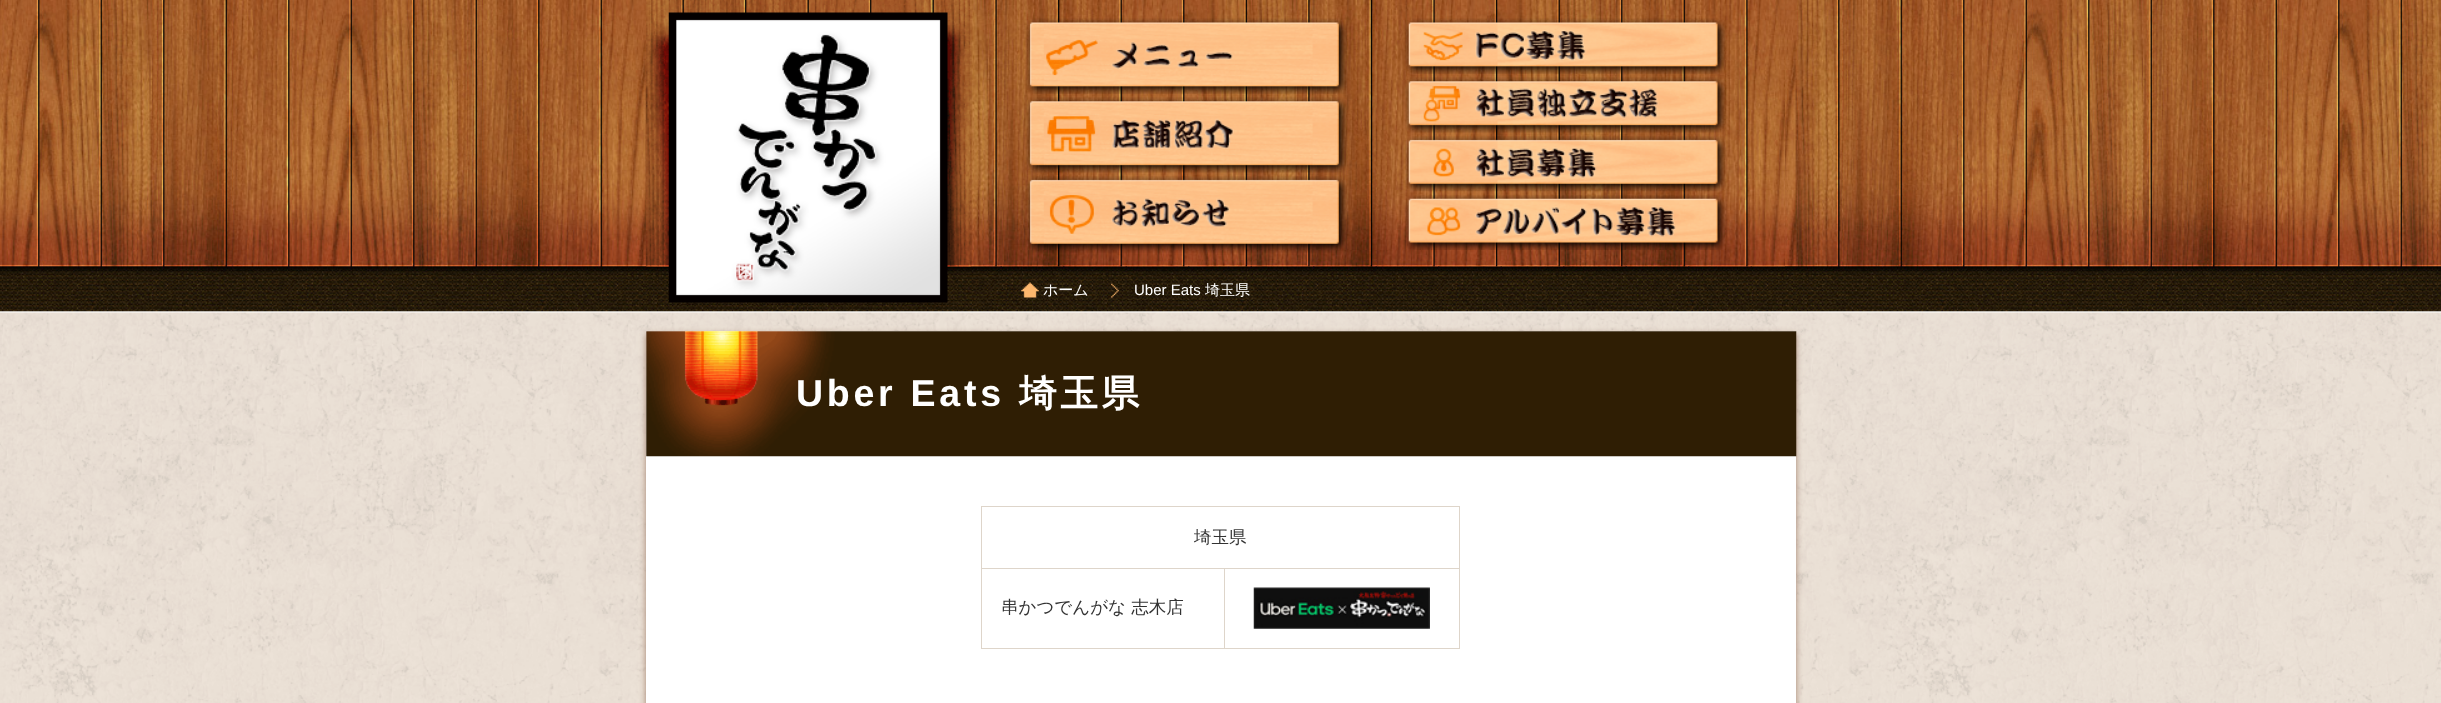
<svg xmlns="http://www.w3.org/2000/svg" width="2441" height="703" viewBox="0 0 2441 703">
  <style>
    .t1 { font: 500 15px WenQuanYi Zen Hei; fill: #fff; }
    .t2 { font: 15px Liberation Sans; fill: #fff; }
    .t3 { font: bold 37.5px Liberation Sans; letter-spacing: 3.75px; fill: #fff; }
    .t4 { font: bold 37.5px WenQuanYi Zen Hei; letter-spacing: 3.75px; fill: #fff; }
    .t5 { font: 500 17.5px WenQuanYi Zen Hei; fill: #333; }
  </style>
  <rect width="100%" height="100%" fill="#fff"/>
  <image x="0" y="312" width="2441" height="391" href="images/1.png"/>
  <image x="0" y="0" width="2441" height="313" href="images/2.png"/>
  <image x="646" y="0" width="1139" height="267" href="images/3.png"/>
  <image x="646" y="0" width="326" height="303" href="images/4.png"/>
  <image x="1026" y="18" width="322" height="76" href="images/5.png"/>
  <image x="1405" y="18" width="322" height="56" href="images/6.png"/>
  <image x="1026" y="97" width="322" height="76" href="images/7.png"/>
  <image x="1405" y="77" width="322" height="56" href="images/8.png"/>
  <image x="1405" y="136" width="322" height="56" href="images/9.png"/>
  <image x="1026" y="176" width="322" height="77" href="images/10.png"/>
  <image x="1405" y="195" width="322" height="55" href="images/11.png"/>
  <image x="1021" y="282" width="18" height="16" href="images/12.png"/>
  <text x="1043" y="295" class="t1">ホーム</text>
  <image x="1111" y="283" width="8" height="15" href="images/13.png"/>
  <text x="1134" y="295" class="t2">Uber Eats</text>
  <text x="1205" y="295" class="t1">埼玉県</text>
  <rect x="646" y="334" width="1150" height="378" fill="#a2826e" filter="blur(3px)"/>
  <rect x="646" y="331" width="1150" height="372" fill="#fff"/>
  <image x="646" y="331" width="1151" height="126" href="images/14.png"/>
  <text x="796" y="406" class="t3">Uber Eats</text>
  <text x="1019" y="406" class="t4">埼玉県</text>
  <rect x="981" y="506" width="479" height="1" fill="#ded5ca"/>
  <rect x="1224" y="568" width="236" height="1" fill="#ded5ca"/>
  <rect x="1459" y="568" width="1" height="81" fill="#ded5ca"/>
  <rect x="1459" y="506" width="1" height="63" fill="#ded5ca"/>
  <rect x="1224" y="648" width="236" height="1" fill="#ded5ca"/>
  <rect x="1224" y="568" width="1" height="81" fill="#ded5ca"/>
  <rect x="981" y="568" width="244" height="1" fill="#ded5ca"/>
  <rect x="981" y="648" width="244" height="1" fill="#ded5ca"/>
  <rect x="981" y="568" width="1" height="81" fill="#ded5ca"/>
  <rect x="981" y="506" width="1" height="63" fill="#ded5ca"/>
  <text x="1194" y="543" class="t5">埼玉県</text>
  <text x="1001" y="613" class="t5">串かつでんがな 志木店</text>
  <image x="1253" y="587" width="177" height="42" href="images/15.png"/>
</svg>
